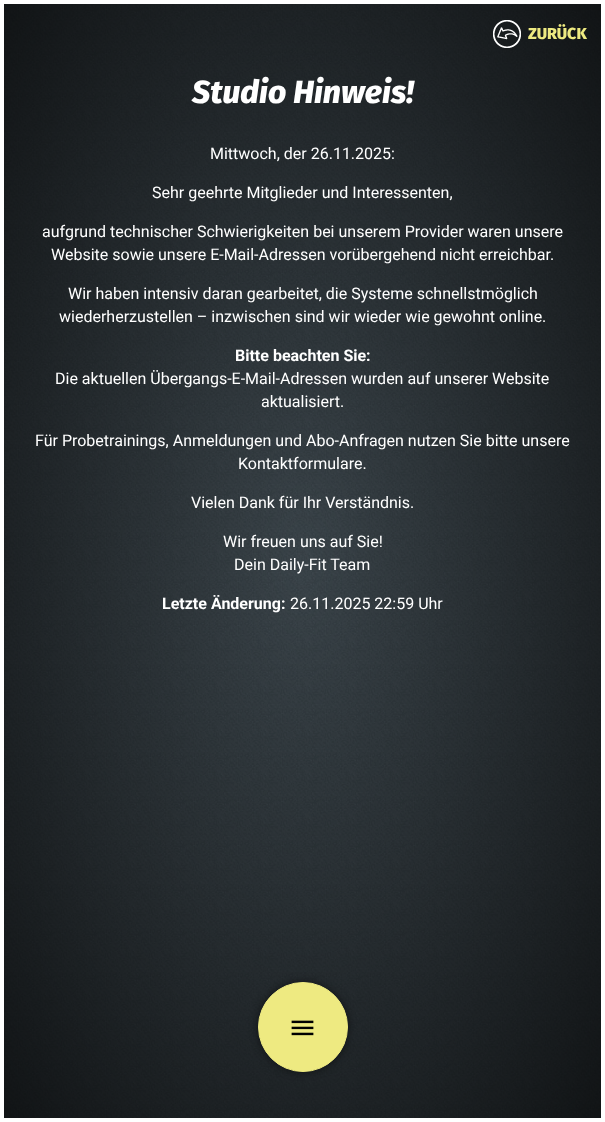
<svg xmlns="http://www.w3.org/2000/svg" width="605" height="1122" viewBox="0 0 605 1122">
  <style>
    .t1 { font: 800 16px Fira Sans; fill: #eeea81; }
    .t2 { font: italic 800 32px Fira Sans; fill: #fff; }
    .t3 { font: 16px Roboto; fill: #fff; }
    .t4 { font: bold 16px Roboto; fill: #fff; }
  </style>
  <rect width="100%" height="100%" fill="#fff"/>
  <image x="4" y="4" width="597" height="1114" href="images/2.png"/>
  <image x="493" y="20" width="28" height="28" href="images/1.png"/>
  <text x="528" y="39" class="t1">ZURÜCK</text>
  <text x="192" y="103" class="t2">Studio Hinweis!</text>
  <text x="210" y="159" class="t3">Mittwoch, der 26.11.2025:</text>
  <text x="152" y="198" class="t3">Sehr geehrte Mitglieder und Interessenten,</text>
  <text x="42" y="237" class="t3">aufgrund technischer Schwierigkeiten bei unserem Provider waren unsere</text>
  <text x="51" y="260" class="t3">Website sowie unsere E-Mail-Adressen vorübergehend nicht erreichbar.</text>
  <text x="68" y="299" class="t3">Wir haben intensiv daran gearbeitet, die Systeme schnellstmöglich</text>
  <text x="59" y="322" class="t3">wiederherzustellen – inzwischen sind wir wieder wie gewohnt online.</text>
  <text x="235" y="361" class="t4">Bitte beachten Sie:</text>
  <text x="55" y="384" class="t3">Die aktuellen Übergangs-E-Mail-Adressen wurden auf unserer Website</text>
  <text x="261" y="407" class="t3">aktualisiert.</text>
  <text x="35" y="446" class="t3">Für Probetrainings, Anmeldungen und Abo-Anfragen nutzen Sie bitte unsere</text>
  <text x="238" y="469" class="t3">Kontaktformulare.</text>
  <text x="191" y="508" class="t3">Vielen Dank für Ihr Verständnis.</text>
  <text x="223" y="547" class="t3">Wir freuen uns auf Sie!</text>
  <text x="234" y="570" class="t3">Dein Daily-Fit Team</text>
  <text x="162" y="609" class="t4">Letzte Änderung:</text>
  <text x="290" y="609" class="t3">26.11.2025 22:59 Uhr</text>
  <rect x="258" y="982" width="90" height="90" rx="45" fill="#00000080" filter="blur(4px)"/>
  <circle cx="303" cy="1027" r="44.5" fill="#eeea81" stroke="#eeea81"/>
  <image x="291" y="1020" width="23" height="16" href="images/3.png"/>
</svg>
